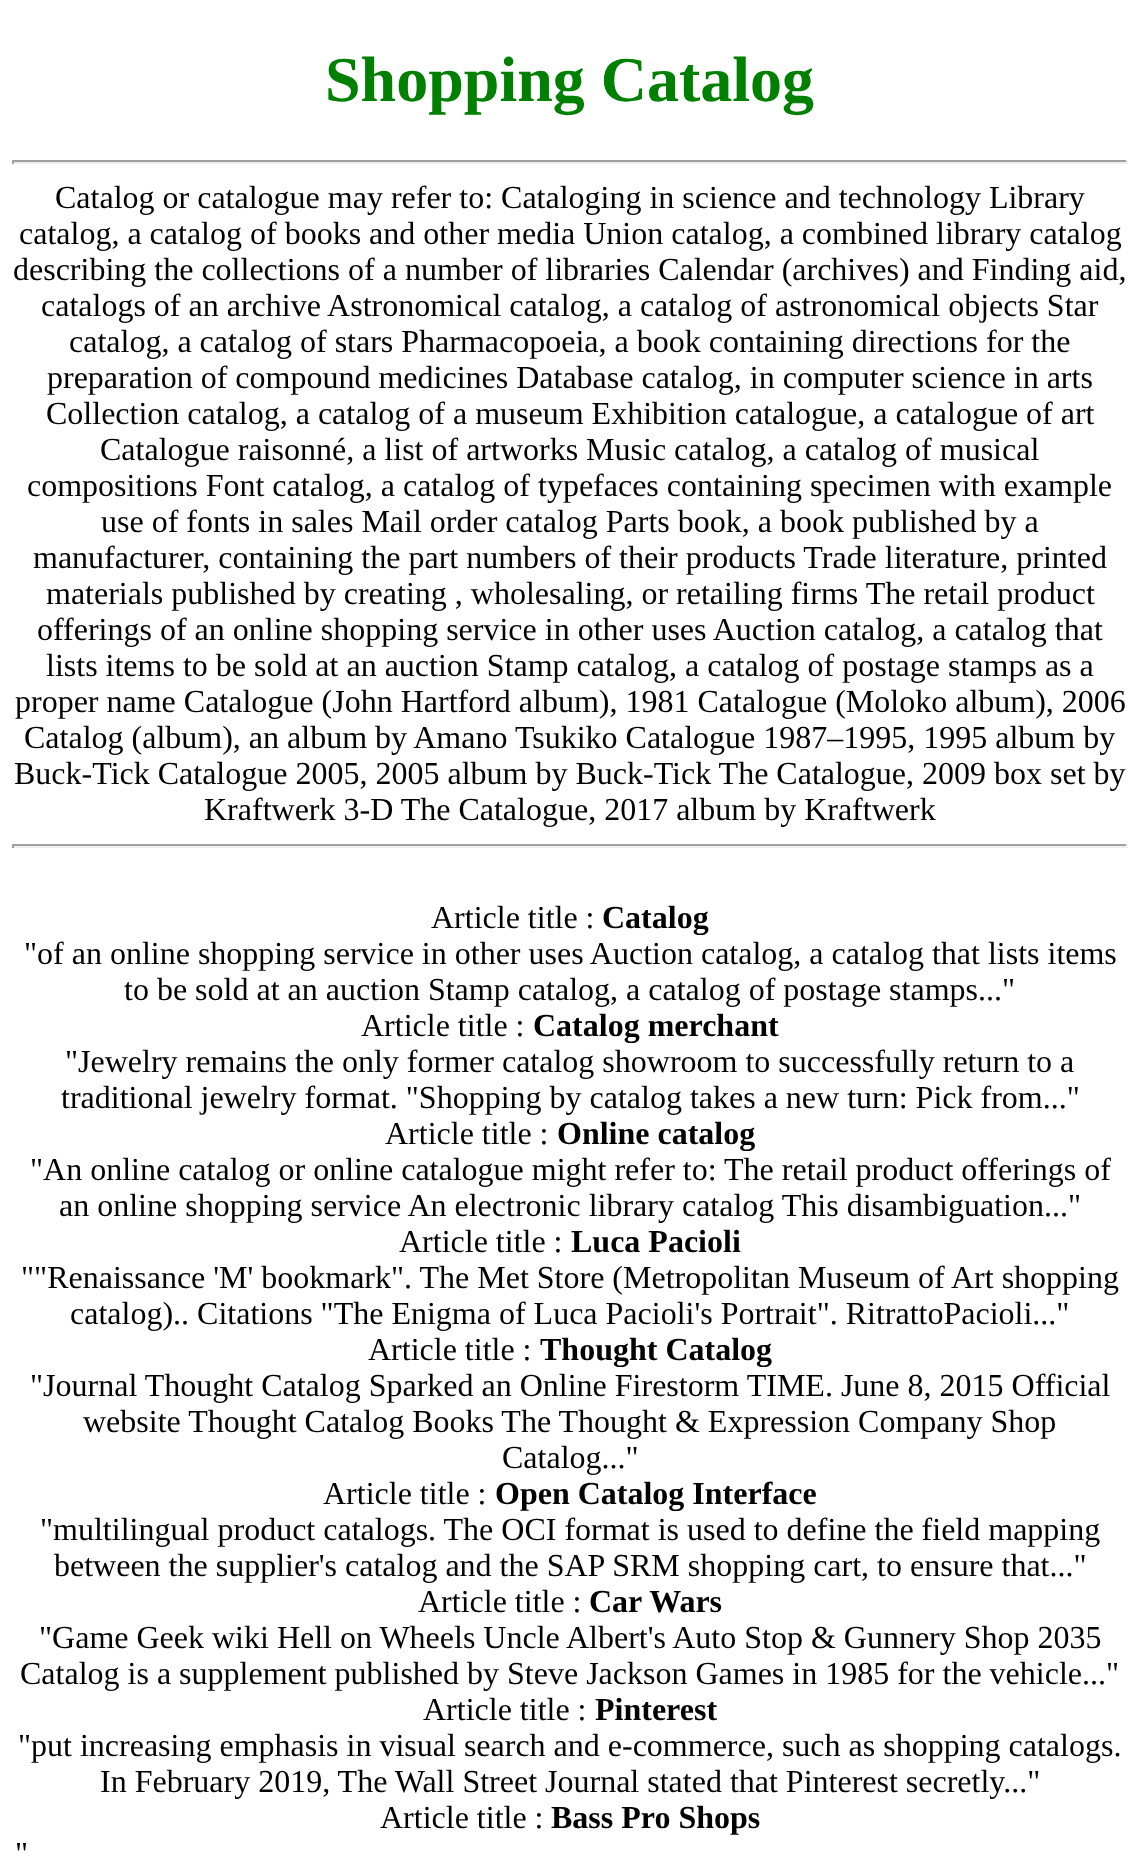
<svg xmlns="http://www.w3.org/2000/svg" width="1140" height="1858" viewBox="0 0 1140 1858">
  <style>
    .t1 { font: bold 64px Liberation Serif; fill: #008000; }
    .t2 { font: 32px Liberation Serif; fill: #000; }
    .t3 { font: bold 32px Liberation Serif; fill: #000; }
  </style>
  <rect width="100%" height="100%" fill="#fff"/>
  <text x="325" y="101" class="t1">Shopping Catalog</text>
  <rect x="12" y="160" width="1116" height="2" fill="#9f9f9f"/>
  <rect x="1126" y="160" width="2" height="4" fill="#eee"/>
  <rect x="12" y="162" width="1116" height="2" fill="#eee"/>
  <rect x="12" y="160" width="2" height="4" fill="#9f9f9f"/>
  <text x="55" y="208" class="t2">Catalog or catalogue may refer to: Cataloging in science and technology Library</text>
  <text x="19" y="244" class="t2">catalog, a catalog of books and other media Union catalog, a combined library catalog</text>
  <text x="13" y="280" class="t2">describing the collections of a number of libraries Calendar (archives) and Finding aid,</text>
  <text x="41" y="316" class="t2">catalogs of an archive Astronomical catalog, a catalog of astronomical objects Star</text>
  <text x="69" y="352" class="t2">catalog, a catalog of stars Pharmacopoeia, a book containing directions for the</text>
  <text x="47" y="388" class="t2">preparation of compound medicines Database catalog, in computer science in arts</text>
  <text x="46" y="424" class="t2">Collection catalog, a catalog of a museum Exhibition catalogue, a catalogue of art</text>
  <text x="100" y="460" class="t2">Catalogue raisonné, a list of artworks Music catalog, a catalog of musical</text>
  <text x="27" y="496" class="t2">compositions Font catalog, a catalog of typefaces containing specimen with example</text>
  <text x="101" y="532" class="t2">use of fonts in sales Mail order catalog Parts book, a book published by a</text>
  <text x="33" y="568" class="t2">manufacturer, containing the part numbers of their products Trade literature, printed</text>
  <text x="46" y="604" class="t2">materials published by creating , wholesaling, or retailing firms The retail product</text>
  <text x="37" y="640" class="t2">offerings of an online shopping service in other uses Auction catalog, a catalog that</text>
  <text x="46" y="676" class="t2">lists items to be sold at an auction Stamp catalog, a catalog of postage stamps as a</text>
  <text x="15" y="712" class="t2">proper name Catalogue (John Hartford album), 1981 Catalogue (Moloko album), 2006</text>
  <text x="24" y="748" class="t2">Catalog (album), an album by Amano Tsukiko Catalogue 1987–1995, 1995 album by</text>
  <text x="14" y="784" class="t2">Buck-Tick Catalogue 2005, 2005 album by Buck-Tick The Catalogue, 2009 box set by</text>
  <text x="204" y="820" class="t2">Kraftwerk 3-D The Catalogue, 2017 album by Kraftwerk</text>
  <rect x="12" y="844" width="1116" height="2" fill="#9f9f9f"/>
  <rect x="1126" y="844" width="2" height="4" fill="#eee"/>
  <rect x="12" y="846" width="1116" height="2" fill="#eee"/>
  <rect x="12" y="844" width="2" height="4" fill="#9f9f9f"/>
  <text x="431" y="928" class="t2">Article title :</text>
  <text x="602" y="928" class="t3">Catalog</text>
  <text x="24" y="964" class="t2">"of an online shopping service in other uses Auction catalog, a catalog that lists items</text>
  <text x="124" y="1000" class="t2">to be sold at an auction Stamp catalog, a catalog of postage stamps..."</text>
  <text x="361" y="1036" class="t2">Article title :</text>
  <text x="533" y="1036" class="t3">Catalog merchant</text>
  <text x="65" y="1072" class="t2">"Jewelry remains the only former catalog showroom to successfully return to a</text>
  <text x="61" y="1108" class="t2">traditional jewelry format. "Shopping by catalog takes a new turn: Pick from..."</text>
  <text x="385" y="1144" class="t2">Article title :</text>
  <text x="557" y="1144" class="t3">Online catalog</text>
  <text x="30" y="1180" class="t2">"An online catalog or online catalogue might refer to: The retail product offerings of</text>
  <text x="59" y="1216" class="t2">an online shopping service An electronic library catalog This disambiguation..."</text>
  <text x="399" y="1252" class="t2">Article title :</text>
  <text x="571" y="1252" class="t3">Luca Pacioli</text>
  <text x="21" y="1288" class="t2">""Renaissance 'M' bookmark". The Met Store (Metropolitan Museum of Art shopping</text>
  <text x="70" y="1324" class="t2">catalog).. Citations "The Enigma of Luca Pacioli's Portrait". RitrattoPacioli..."</text>
  <text x="368" y="1360" class="t2">Article title :</text>
  <text x="540" y="1360" class="t3">Thought Catalog</text>
  <text x="30" y="1396" class="t2">"Journal Thought Catalog Sparked an Online Firestorm TIME. June 8, 2015 Official</text>
  <text x="83" y="1432" class="t2">website Thought Catalog Books The Thought &amp; Expression Company Shop</text>
  <text x="502" y="1468" class="t2">Catalog..."</text>
  <text x="323" y="1504" class="t2">Article title :</text>
  <text x="495" y="1504" class="t3">Open Catalog Interface</text>
  <text x="40" y="1540" class="t2">"multilingual product catalogs. The OCI format is used to define the field mapping</text>
  <text x="54" y="1576" class="t2">between the supplier's catalog and the SAP SRM shopping cart, to ensure that..."</text>
  <text x="418" y="1612" class="t2">Article title :</text>
  <text x="589" y="1612" class="t3">Car Wars</text>
  <text x="39" y="1648" class="t2">"Game Geek wiki Hell on Wheels Uncle Albert's Auto Stop &amp; Gunnery Shop 2035</text>
  <text x="20" y="1684" class="t2">Catalog is a supplement published by Steve Jackson Games in 1985 for the vehicle..."</text>
  <text x="423" y="1720" class="t2">Article title :</text>
  <text x="595" y="1720" class="t3">Pinterest</text>
  <text x="18" y="1756" class="t2">"put increasing emphasis in visual search and e-commerce, such as shopping catalogs.</text>
  <text x="100" y="1792" class="t2">In February 2019, The Wall Street Journal stated that Pinterest secretly..."</text>
  <text x="380" y="1828" class="t2">Article title :</text>
  <text x="551" y="1828" class="t3">Bass Pro Shops</text>
  <text x="15" y="1864" class="t2">"</text>
</svg>
